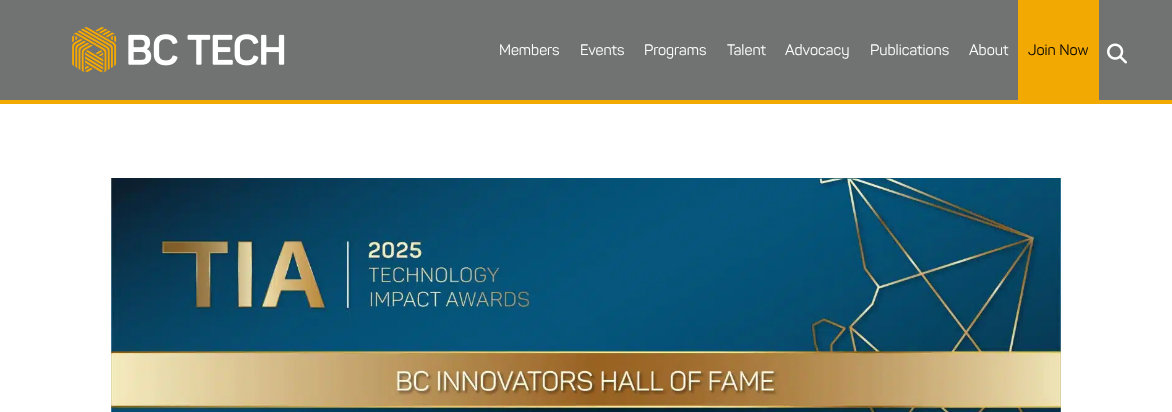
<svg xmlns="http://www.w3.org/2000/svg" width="1172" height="412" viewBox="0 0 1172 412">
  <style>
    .t1 { font: 15px 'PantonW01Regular'; fill: #fff; }
    .t2 { font: 15px 'PantonW01Regular'; fill: #000; }
  </style>
  <rect width="100%" height="100%" fill="#fff"/>
  <rect x="0" y="0" width="1172" height="100" fill="#707372"/>
  <rect x="0" y="100" width="1172" height="4" fill="#f2a900"/>
  <image x="72" y="27" width="213" height="46" href="images/1.png"/>
  <text x="499" y="55" class="t1">Members</text>
  <text x="580" y="55" class="t1">Events</text>
  <text x="644" y="55" class="t1">Programs</text>
  <text x="727" y="55" class="t1">Talent</text>
  <text x="785" y="55" class="t1">Advocacy</text>
  <text x="870" y="55" class="t1">Publications</text>
  <text x="969" y="55" class="t1">About</text>
  <rect x="1018" y="0" width="81" height="100" fill="#f2a901"/>
  <text x="1028" y="55" class="t2">Join Now</text>
  <image x="1107" y="43" width="20" height="21" href="images/2.png"/>
  <image x="111" y="178" width="950" height="234" href="images/3.png"/>
</svg>
